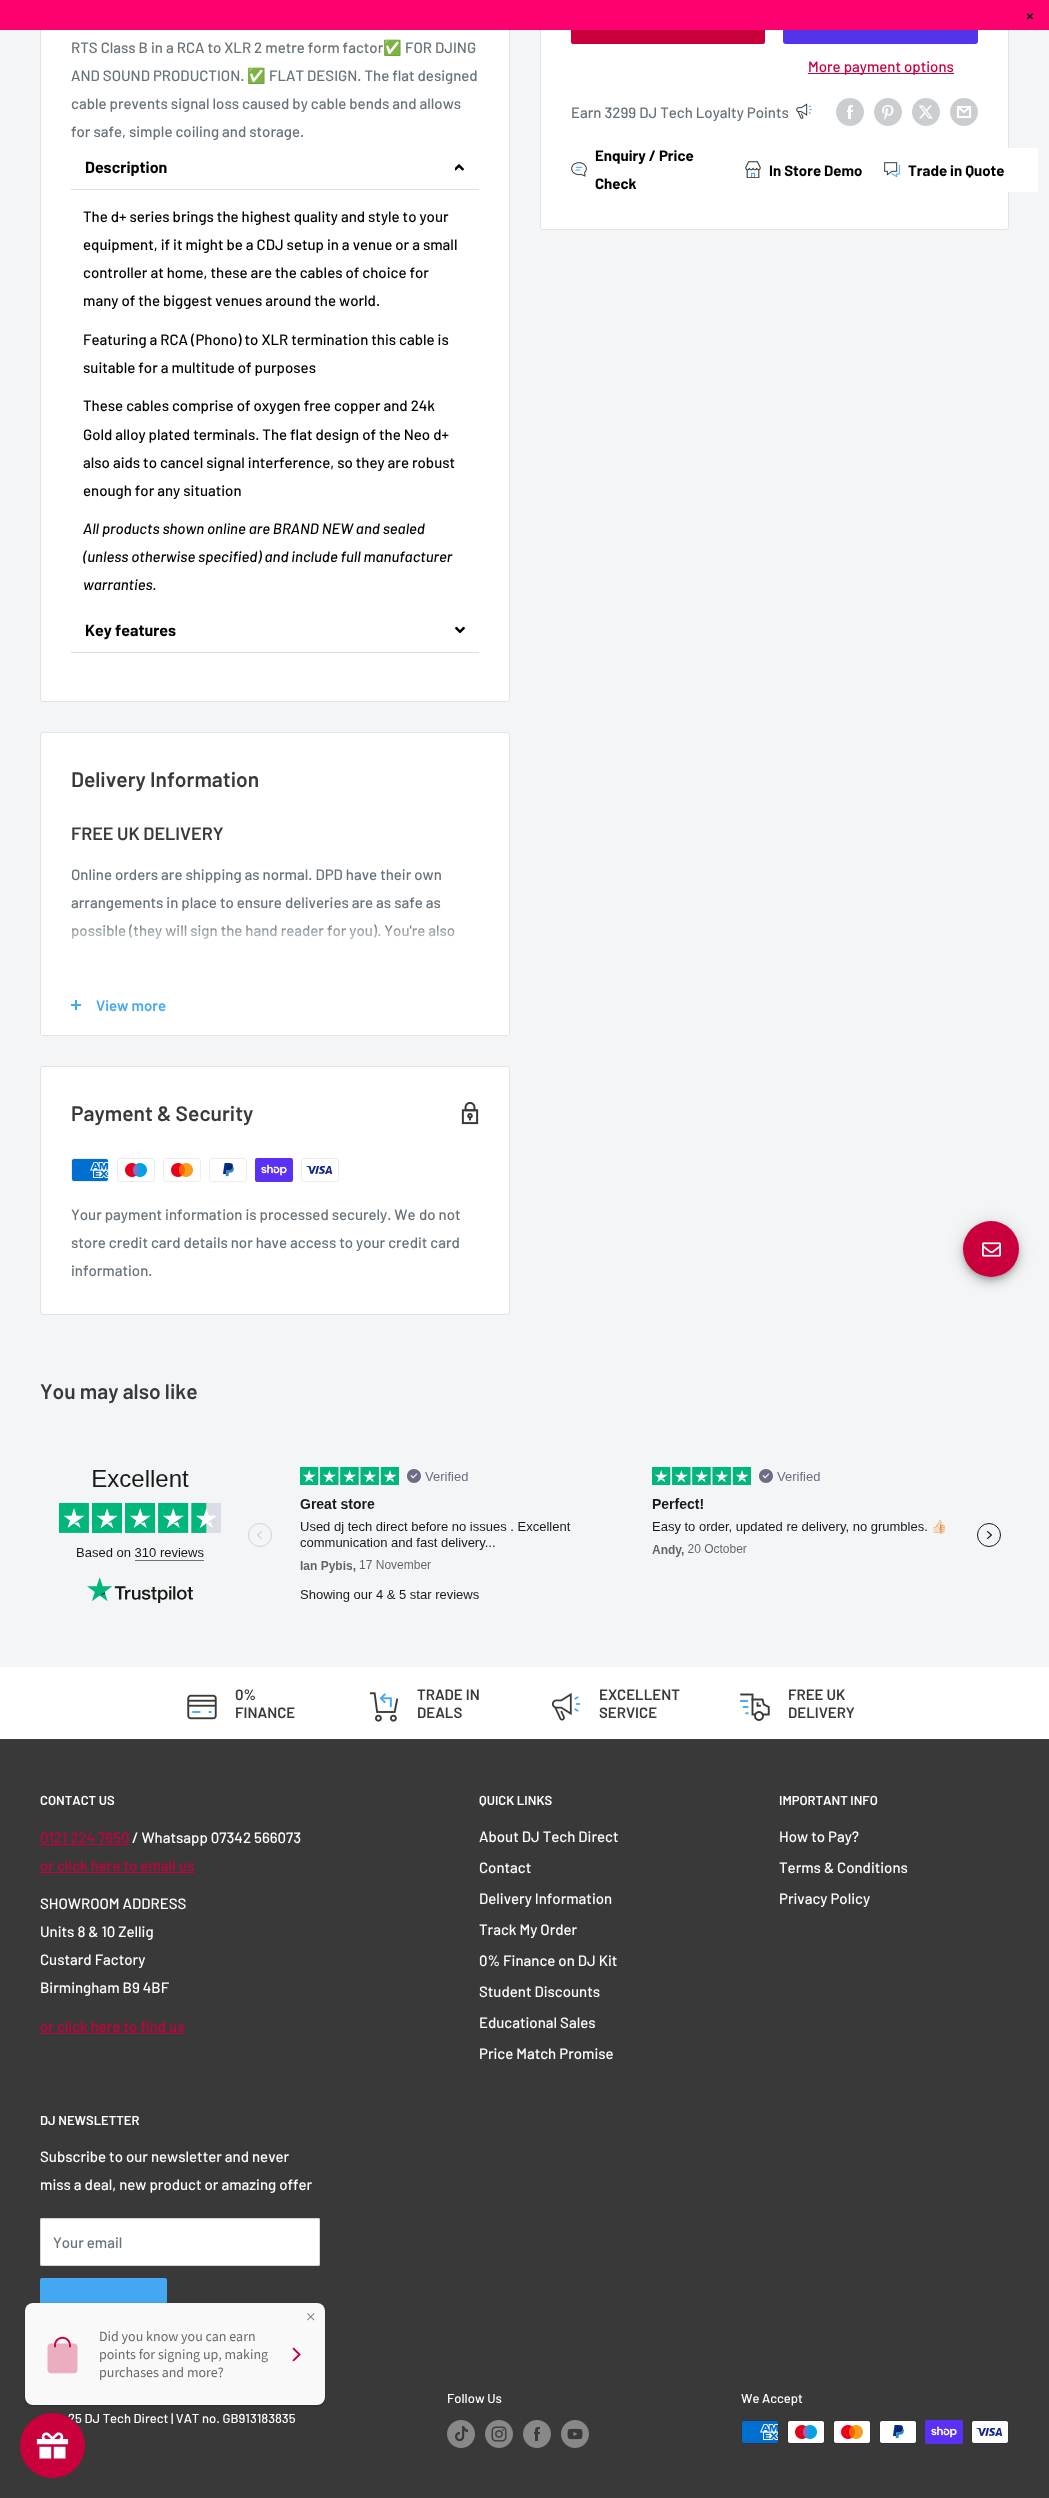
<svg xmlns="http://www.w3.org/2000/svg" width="1049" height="2498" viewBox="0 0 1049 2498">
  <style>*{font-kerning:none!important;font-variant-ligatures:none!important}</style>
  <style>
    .t1 { font: 500 18px Barlow; fill: #000; }
    .t2 { font: 500 15px Barlow; fill: #677279; }
    .t3 { font: 15px Noto Color Emoji; fill: #677279; }
    .t4 { font: bold 16px Barlow; fill: #000; }
    .t5 { font: 500 15px Barlow; fill: #000; }
    .t6 { font: italic 500 15px Barlow; fill: #000; }
    .t7 { font: 500 15px Barlow; fill: #ca003d; }
    .t8 { font: bold 15px Barlow; fill: #000; }
    .t9 { font: 600 21px Barlow; fill: #393939; }
    .t10 { font: 600 18px Barlow; fill: #393939; }
    .t11 { font: 600 15px Barlow; fill: #44a7f2; }
    .t12 { font: 600 15px Barlow; fill: #393939; }
    .t13 { font: 600 13px Barlow; fill: #fff; }
    .t14 { font: 500 15px Barlow; fill: #fff; }
    .t15 { font: 500 13px Barlow; fill: #fff; }
  </style>
  <defs>
    <linearGradient id="g1" gradientUnits="userSpaceOnUse" x1="275" y1="925" x2="275" y2="975"><stop offset="0" stop-color="#fff" stop-opacity="0"/><stop offset="0.15" stop-color="#fff" stop-opacity="0.4"/><stop offset="1" stop-color="#fff"/></linearGradient>
  </defs>
  <rect width="100%" height="100%" fill="#f3f5f6"/>
  <rect x="40.5" y="-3.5" width="469" height="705" rx="2.5" fill="#fff" stroke="#e4e2e2"/>
  <rect x="540.5" y="-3.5" width="468" height="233" rx="2.5" fill="#fff" stroke="#e4e2e2"/>
  <rect x="571" y="-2" width="194" height="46" rx="2" fill="#ca003d"/>
  <rect x="783" y="-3" width="195" height="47" rx="3" fill="#5433eb"/>
  <rect x="0" y="0" width="1049" height="30" fill="#ff0070"/>
  <text x="1026" y="22" class="t1">×</text>
  <text x="71" y="53" class="t2">RTS Class B in a RCA to XLR 2 metre form factor</text>
  <text x="383" y="53" class="t3">✅</text>
  <text x="405" y="53" class="t2">FOR DJING</text>
  <text x="71" y="81" class="t2">AND SOUND PRODUCTION.</text>
  <text x="247" y="81" class="t3">✅</text>
  <text x="269" y="81" class="t2">FLAT DESIGN. The flat designed</text>
  <text x="71" y="109" class="t2">cable prevents signal loss caused by cable bends and allows</text>
  <text x="71" y="137" class="t2">for safe, simple coiling and storage.</text>
  <rect x="71" y="189" width="408" height="1" fill="#ddd"/>
  <text x="85" y="173" class="t4">Description</text>
  <image x="455" y="164" width="9" height="7" href="images/1.png"/>
  <text x="83" y="222" class="t5">The d+ series brings the highest quality and style to your</text>
  <text x="83" y="250" class="t5">equipment, if it might be a CDJ setup in a venue or a small</text>
  <text x="83" y="278" class="t5">controller at home, these are the cables of choice for</text>
  <text x="83" y="306" class="t5">many of the biggest venues around the world.</text>
  <text x="83" y="345" class="t5">Featuring a RCA (Phono) to XLR termination this cable is</text>
  <text x="83" y="373" class="t5">suitable for a multitude of purposes</text>
  <text x="83" y="411" class="t5">These cables comprise of oxygen free copper and 24k</text>
  <text x="83" y="440" class="t5">Gold alloy plated terminals. The flat design of the Neo d+</text>
  <text x="83" y="468" class="t5">also aids to cancel signal interference, so they are robust</text>
  <text x="83" y="496" class="t5">enough for any situation</text>
  <text x="83" y="534" class="t6">All products shown online are BRAND NEW and sealed</text>
  <text x="83" y="562" class="t6">(unless otherwise specified) and include full manufacturer</text>
  <text x="83" y="590" class="t6">warranties.</text>
  <rect x="71" y="652" width="408" height="1" fill="#ddd"/>
  <text x="85" y="636" class="t4">Key features</text>
  <image x="455" y="626" width="10" height="8" href="images/2.png"/>
  <rect x="808" y="73" width="146" height="1" fill="#ca003d"/>
  <text x="808" y="72" class="t7">More payment options</text>
  <text x="571" y="118" class="t2">Earn 3299 DJ Tech Loyalty Points</text>
  <image x="796" y="103" width="16" height="16" href="images/3.png"/>
  <image x="836" y="98" width="28" height="28" href="images/4.png"/>
  <image x="874" y="98" width="28" height="28" href="images/5.png"/>
  <image x="912" y="98" width="28" height="28" href="images/6.png"/>
  <image x="950" y="98" width="28" height="28" href="images/7.png"/>
  <image x="571" y="162" width="16" height="15" href="images/8.png"/>
  <text x="595" y="161" class="t8">Enquiry / Price</text>
  <text x="595" y="189" class="t8">Check</text>
  <image x="745" y="161" width="16" height="17" href="images/9.png"/>
  <text x="769" y="176" class="t8">In Store Demo</text>
  <image x="884" y="162" width="16" height="15" href="images/10.png"/>
  <rect x="1008" y="148" width="30" height="44" fill="#fff"/>
  <text x="908" y="176" class="t8">Trade in Quote</text>
  <rect x="40.5" y="732.5" width="469" height="303" rx="2.5" fill="#fff" stroke="#e4e2e2"/>
  <text x="71" y="787" class="t9">Delivery Information</text>
  <text x="71" y="840" class="t10">FREE UK DELIVERY</text>
  <text x="71" y="880" class="t2">Online orders are shipping as normal. DPD have their own</text>
  <text x="71" y="908" class="t2">arrangements in place to ensure deliveries are as safe as</text>
  <text x="71" y="936" class="t2">possible (they will sign the hand reader for you). You're also</text>
  <rect x="41" y="1033" width="468" height="2" fill="#fff"/>
  <rect x="72" y="925" width="383" height="14" fill="url(#g1)"/>
  <rect x="75" y="1000" width="2" height="10" fill="#44a7f2"/>
  <rect x="71" y="1004" width="10" height="2" fill="#44a7f2"/>
  <text x="96" y="1011" class="t11">View more</text>
  <rect x="40.5" y="1066.5" width="469" height="248" rx="2.5" fill="#fff" stroke="#e4e2e2"/>
  <text x="71" y="1121" class="t9">Payment &amp; Security</text>
  <image x="461" y="1101" width="18" height="24" href="images/11.png"/>
  <image x="71" y="1158" width="38" height="24" href="images/12.png"/>
  <image x="117" y="1158" width="38" height="24" href="images/13.png"/>
  <image x="163" y="1158" width="38" height="24" href="images/14.png"/>
  <image x="209" y="1158" width="38" height="24" href="images/15.png"/>
  <image x="255" y="1158" width="38" height="24" href="images/16.png"/>
  <image x="301" y="1158" width="38" height="24" href="images/17.png"/>
  <text x="71" y="1220" class="t2">Your payment information is processed securely. We</text>
  <text x="419" y="1220" class="t2">do not</text>
  <text x="71" y="1248" class="t2">store credit card details nor have access to your credit card</text>
  <text x="71" y="1276" class="t2">information.</text>
  <text x="40" y="1399" class="t9">You may also like</text>
  <rect x="963" y="1222" width="56" height="56" rx="28" fill="#0000001f" filter="blur(9px)"/>
  <rect x="963" y="1227" width="56" height="56" rx="28" fill="#00000024" filter="blur(5px)"/>
  <rect x="964" y="1225" width="54" height="54" rx="27" fill="#00000033" filter="blur(2.5px)"/>
  <circle cx="991" cy="1249" r="28" fill="#ca003d"/>
  <image x="982" y="1242" width="19" height="15" href="images/18.png"/>
  <image x="59" y="1467" width="942" height="136" href="images/19.png"/>
  <rect x="0" y="1667" width="1049" height="72" fill="#fff"/>
  <image x="187" y="1694" width="30" height="26" href="images/20.png"/>
  <text x="235" y="1700" class="t12">0%</text>
  <text x="235" y="1718" class="t12">FINANCE</text>
  <image x="369" y="1692" width="30" height="30" href="images/21.png"/>
  <text x="417" y="1700" class="t12">TRADE IN</text>
  <text x="417" y="1718" class="t12">DEALS</text>
  <image x="551" y="1692" width="30" height="29" href="images/22.png"/>
  <text x="599" y="1700" class="t12">EXCELLENT</text>
  <text x="599" y="1718" class="t12">SERVICE</text>
  <image x="740" y="1693" width="30" height="28" href="images/23.png"/>
  <text x="788" y="1700" class="t12">FREE UK</text>
  <text x="788" y="1718" class="t12">DELIVERY</text>
  <rect x="0" y="1739" width="1049" height="759" fill="#393939"/>
  <text x="40" y="1805" class="t13">CONTACT US</text>
  <text x="40" y="1843" class="t7">0121 224 7650</text>
  <rect x="40" y="1844" width="89" height="1" fill="#ca003d"/>
  <text x="132" y="1843" class="t14">/ Whatsapp 07342 566073</text>
  <text x="40" y="1871" class="t7">or click here to email us</text>
  <rect x="40" y="1872" width="154" height="1" fill="#ca003d"/>
  <text x="40" y="1909" class="t14">SHOWROOM ADDRESS</text>
  <text x="40" y="1937" class="t14">Units 8 &amp; 10 Zellig</text>
  <text x="40" y="1965" class="t14">Custard Factory</text>
  <text x="40" y="1993" class="t14">Birmingham B9 4BF</text>
  <text x="40" y="2032" class="t7">or click here to find us</text>
  <rect x="40" y="2033" width="144" height="1" fill="#ca003d"/>
  <text x="479" y="1805" class="t13">QUICK LINKS</text>
  <text x="479" y="1842" class="t14">About DJ Tech Direct</text>
  <text x="479" y="1873" class="t14">Contact</text>
  <text x="479" y="1904" class="t14">Delivery Information</text>
  <text x="479" y="1935" class="t14">Track My Order</text>
  <text x="479" y="1966" class="t14">0% Finance on DJ Kit</text>
  <text x="479" y="1997" class="t14">Student Discounts</text>
  <text x="479" y="2028" class="t14">Educational Sales</text>
  <text x="479" y="2059" class="t14">Price Match Promise</text>
  <text x="779" y="1805" class="t13">IMPORTANT INFO</text>
  <text x="779" y="1842" class="t14">How to Pay?</text>
  <text x="779" y="1873" class="t14">Terms &amp; Conditions</text>
  <text x="779" y="1904" class="t14">Privacy Policy</text>
  <text x="40" y="2125" class="t13">DJ NEWSLETTER</text>
  <text x="40" y="2162" class="t14">Subscribe to our newsletter and never</text>
  <text x="40" y="2190" class="t14">miss a deal, new product or amazing offer</text>
  <rect x="40" y="2218" width="280" height="48" rx="2" fill="#fff"/>
  <path d="M42 2220H318C319 2220 319 2220 319 2221C319 2220 319 2219 318 2219H42H41V2221C41 2220 41 2220 42 2220Z" fill="#f8f8f8"/>
  <rect x="40.5" y="2218.5" width="279" height="47" rx="1.5" fill="none" stroke="#d8d5d5"/>
  <text x="53" y="2248" class="t2">Your email</text>
  <rect x="40" y="2278" width="127" height="48" rx="2" fill="#44a7f2"/>
  <text x="447" y="2403" class="t15">Follow Us</text>
  <image x="447" y="2420" width="28" height="28" href="images/24.png"/>
  <image x="485" y="2420" width="28" height="28" href="images/25.png"/>
  <image x="523" y="2420" width="28" height="28" href="images/26.png"/>
  <image x="561" y="2420" width="28" height="28" href="images/27.png"/>
  <text x="741" y="2403" class="t15">We Accept</text>
  <image x="741" y="2420" width="38" height="24" href="images/28.png"/>
  <image x="787" y="2420" width="38" height="24" href="images/29.png"/>
  <image x="833" y="2420" width="38" height="24" href="images/30.png"/>
  <image x="879" y="2420" width="38" height="24" href="images/31.png"/>
  <image x="925" y="2420" width="38" height="24" href="images/32.png"/>
  <image x="971" y="2420" width="38" height="24" href="images/33.png"/>
  <text x="68" y="2423" class="t15">25 DJ Tech Direct | VAT</text>
  <text x="202" y="2423" class="t15">no. GB913183835</text>
  <image x="24" y="2302" width="302" height="105" href="images/34.png"/>
  <image x="20" y="2413" width="65" height="65" href="images/35.png"/>
</svg>
